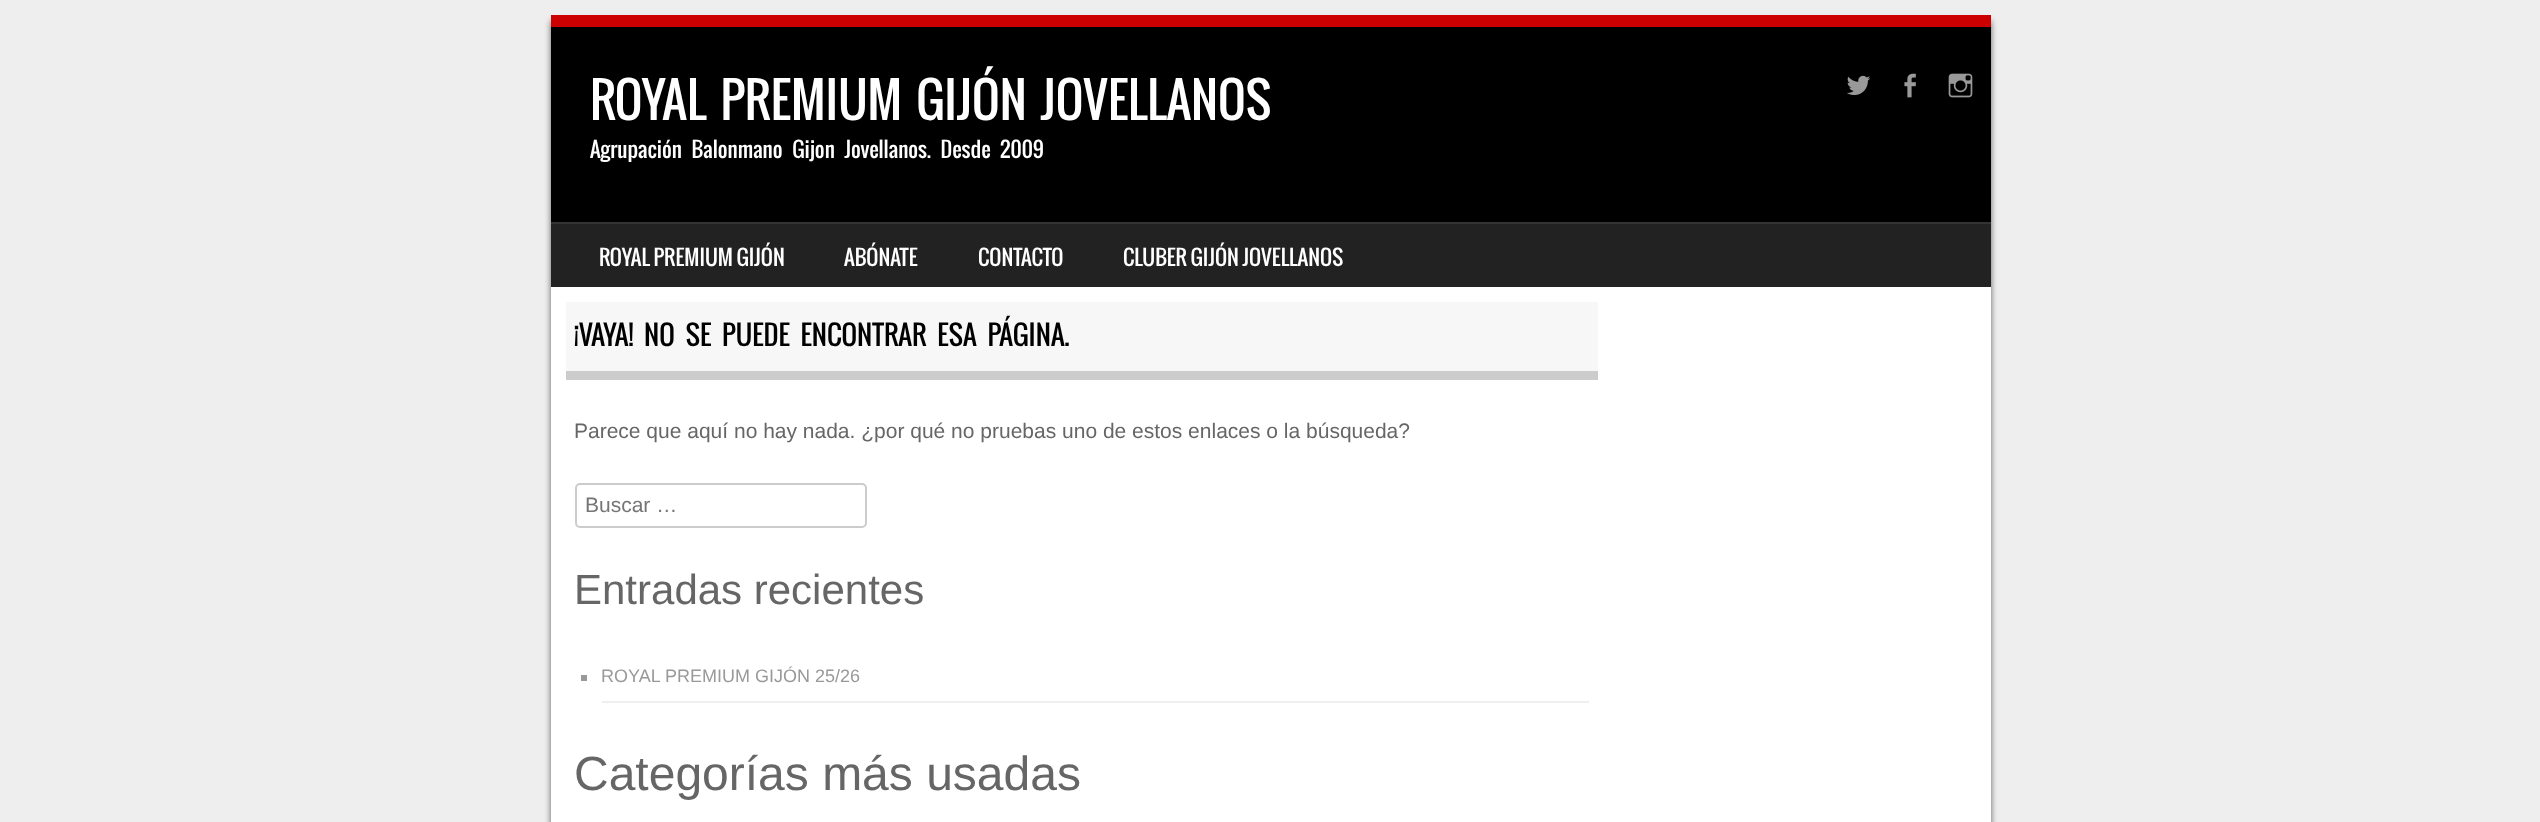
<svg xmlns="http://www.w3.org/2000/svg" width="2540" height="822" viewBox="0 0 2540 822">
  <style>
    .t1 { font: 48px Oswald; fill: #fff; }
    .t2 { font: 21px Oswald; fill: #fff; }
    .t3 { font: 27px Oswald; fill: #000; }
    .t4 { font: 21px Liberation Sans; fill: #666; }
    .t5 { font: 21px Liberation Sans; fill: #757575; }
    .t6 { font: 42px Liberation Sans; fill: #666; }
    .t7 { font: 18px Liberation Sans; fill: #999; }
    .t8 { font: 48px Liberation Sans; fill: #666; }
  </style>
  <rect width="100%" height="100%" fill="#eee"/>
  <rect x="551" y="21" width="1440" height="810" fill="#00000099" filter="blur(3px)"/>
  <rect x="551" y="27" width="1440" height="195" fill="#000"/>
  <rect x="551" y="15" width="1440" height="12" fill="#c00"/>
  <text x="590" y="120" word-spacing="6" class="t1">ROYAL PREMIUM GIJÓN JOVELLANOS</text>
  <text x="590" y="158" word-spacing="6" class="t2">Agrupación Balonmano Gijon Jovellanos. Desde 2009</text>
  <image x="1846" y="75" width="25" height="20" href="images/1.png"/>
  <image x="1904" y="73" width="12" height="25" href="images/2.png"/>
  <image x="1948" y="73" width="25" height="25" href="images/3.png"/>
  <rect x="551" y="224" width="1440" height="63" fill="#222"/>
  <rect x="551" y="222" width="1440" height="2" fill="#333"/>
  <text x="599" y="266" class="t2">ROYAL PREMIUM GIJÓN</text>
  <text x="844" y="266" class="t2">ABÓNATE</text>
  <text x="978" y="266" class="t2">CONTACTO</text>
  <text x="1123" y="266" class="t2">CLUBER GIJÓN JOVELLANOS</text>
  <rect x="551" y="287" width="1440" height="535" fill="#fff"/>
  <rect x="566" y="302" width="1032" height="69" fill="#f7f7f7"/>
  <rect x="566" y="371" width="1032" height="9" fill="#ccc"/>
  <text x="574" y="346" word-spacing="6" class="t3">¡VAYA! NO SE PUEDE ENCONTRAR ESA PÁGINA.</text>
  <text x="574" y="438" class="t4">Parece que aquí no hay nada. ¿por qué no pruebas uno de estos enlaces o la búsqueda?</text>
  <rect x="576" y="484" width="290" height="43" rx="4" fill="none" stroke="#ccc" stroke-width="2"/>
  <text x="585" y="512" class="t5">Buscar …</text>
  <text x="574" y="604" class="t6">Entradas recientes</text>
  <rect x="602" y="701" width="987" height="2" fill="#efefef"/>
  <rect x="581" y="675" width="6" height="6" fill="#999"/>
  <text x="601" y="682" class="t7">ROYAL PREMIUM GIJÓN 25/26</text>
  <text x="574" y="790" class="t8">Categorías más usadas</text>
</svg>
